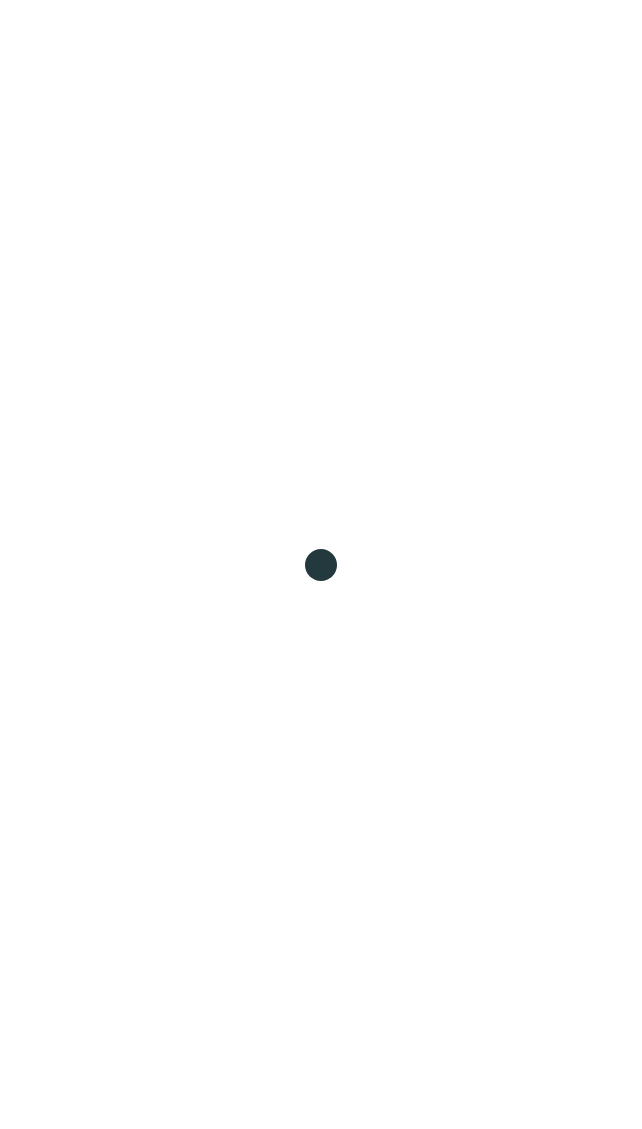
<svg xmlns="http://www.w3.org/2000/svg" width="642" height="1129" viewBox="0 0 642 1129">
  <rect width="100%" height="100%" fill="#fff"/>
  <circle cx="321" cy="565" r="16" fill="#23393d"/>
</svg>
